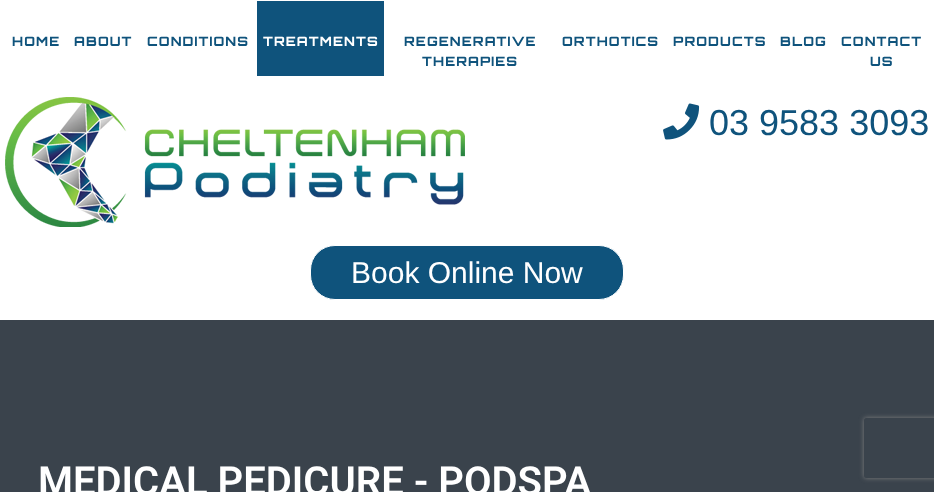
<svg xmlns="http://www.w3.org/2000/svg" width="934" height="492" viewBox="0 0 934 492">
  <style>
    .t1 { font: 800 13px Orbitron; letter-spacing: 1.1px; fill: #0f537c; }
    .t2 { font: 800 13px Orbitron; letter-spacing: 1.1px; fill: #fff; }
    .t3 { font: 36px Liberation Sans; fill: #0f537c; }
    .t4 { font: 30px Liberation Sans; fill: #fff; }
    .t5 { font: 600 40px Roboto; fill: #fff; }
  </style>
  <defs>
    <clipPath id="clip1"><path d="M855 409H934V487H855ZM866 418H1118C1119 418 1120 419 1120 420V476C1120 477 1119 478 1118 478H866C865 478 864 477 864 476V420C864 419 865 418 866 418Z" clip-rule="evenodd"/></clipPath>
  </defs>
  <rect width="100%" height="100%" fill="#fff"/>
  <text x="12" y="46" class="t1">HOME</text>
  <text x="74" y="46" class="t1">ABOUT</text>
  <text x="147" y="46" class="t1">CONDITIONS</text>
  <rect x="257" y="1" width="127" height="75" fill="#0f537c"/>
  <text x="263" y="46" class="t2">TREATMENTS</text>
  <text x="404" y="46" class="t1">REGENERATIVE</text>
  <text x="422" y="66" class="t1">THERAPIES</text>
  <text x="562" y="46" class="t1">ORTHOTICS</text>
  <text x="673" y="46" class="t1">PRODUCTS</text>
  <text x="780" y="46" class="t1">BLOG</text>
  <text x="841" y="46" class="t1">CONTACT</text>
  <text x="870" y="66" class="t1">US</text>
  <image x="5" y="97" width="460" height="130" href="images/1.png"/>
  <image x="663" y="103" width="37" height="37" href="images/2.png"/>
  <text x="709" y="135" class="t3">03 9583 3093</text>
  <rect x="310.5" y="245.5" width="313" height="54" rx="24.5" fill="#0f537c" stroke="#fff"/>
  <text x="351" y="283" class="t4">Book Online Now</text>
  <rect x="0" y="320" width="934" height="172" fill="#3a434c"/>
  <text x="38" y="495" class="t5">MEDICAL PEDICURE - PODSPA</text>
  <g clip-path="url(#clip1)">
    <rect x="864" y="418" width="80" height="60" rx="2" fill="#808080" filter="blur(2.5px)"/>
  </g>
</svg>
